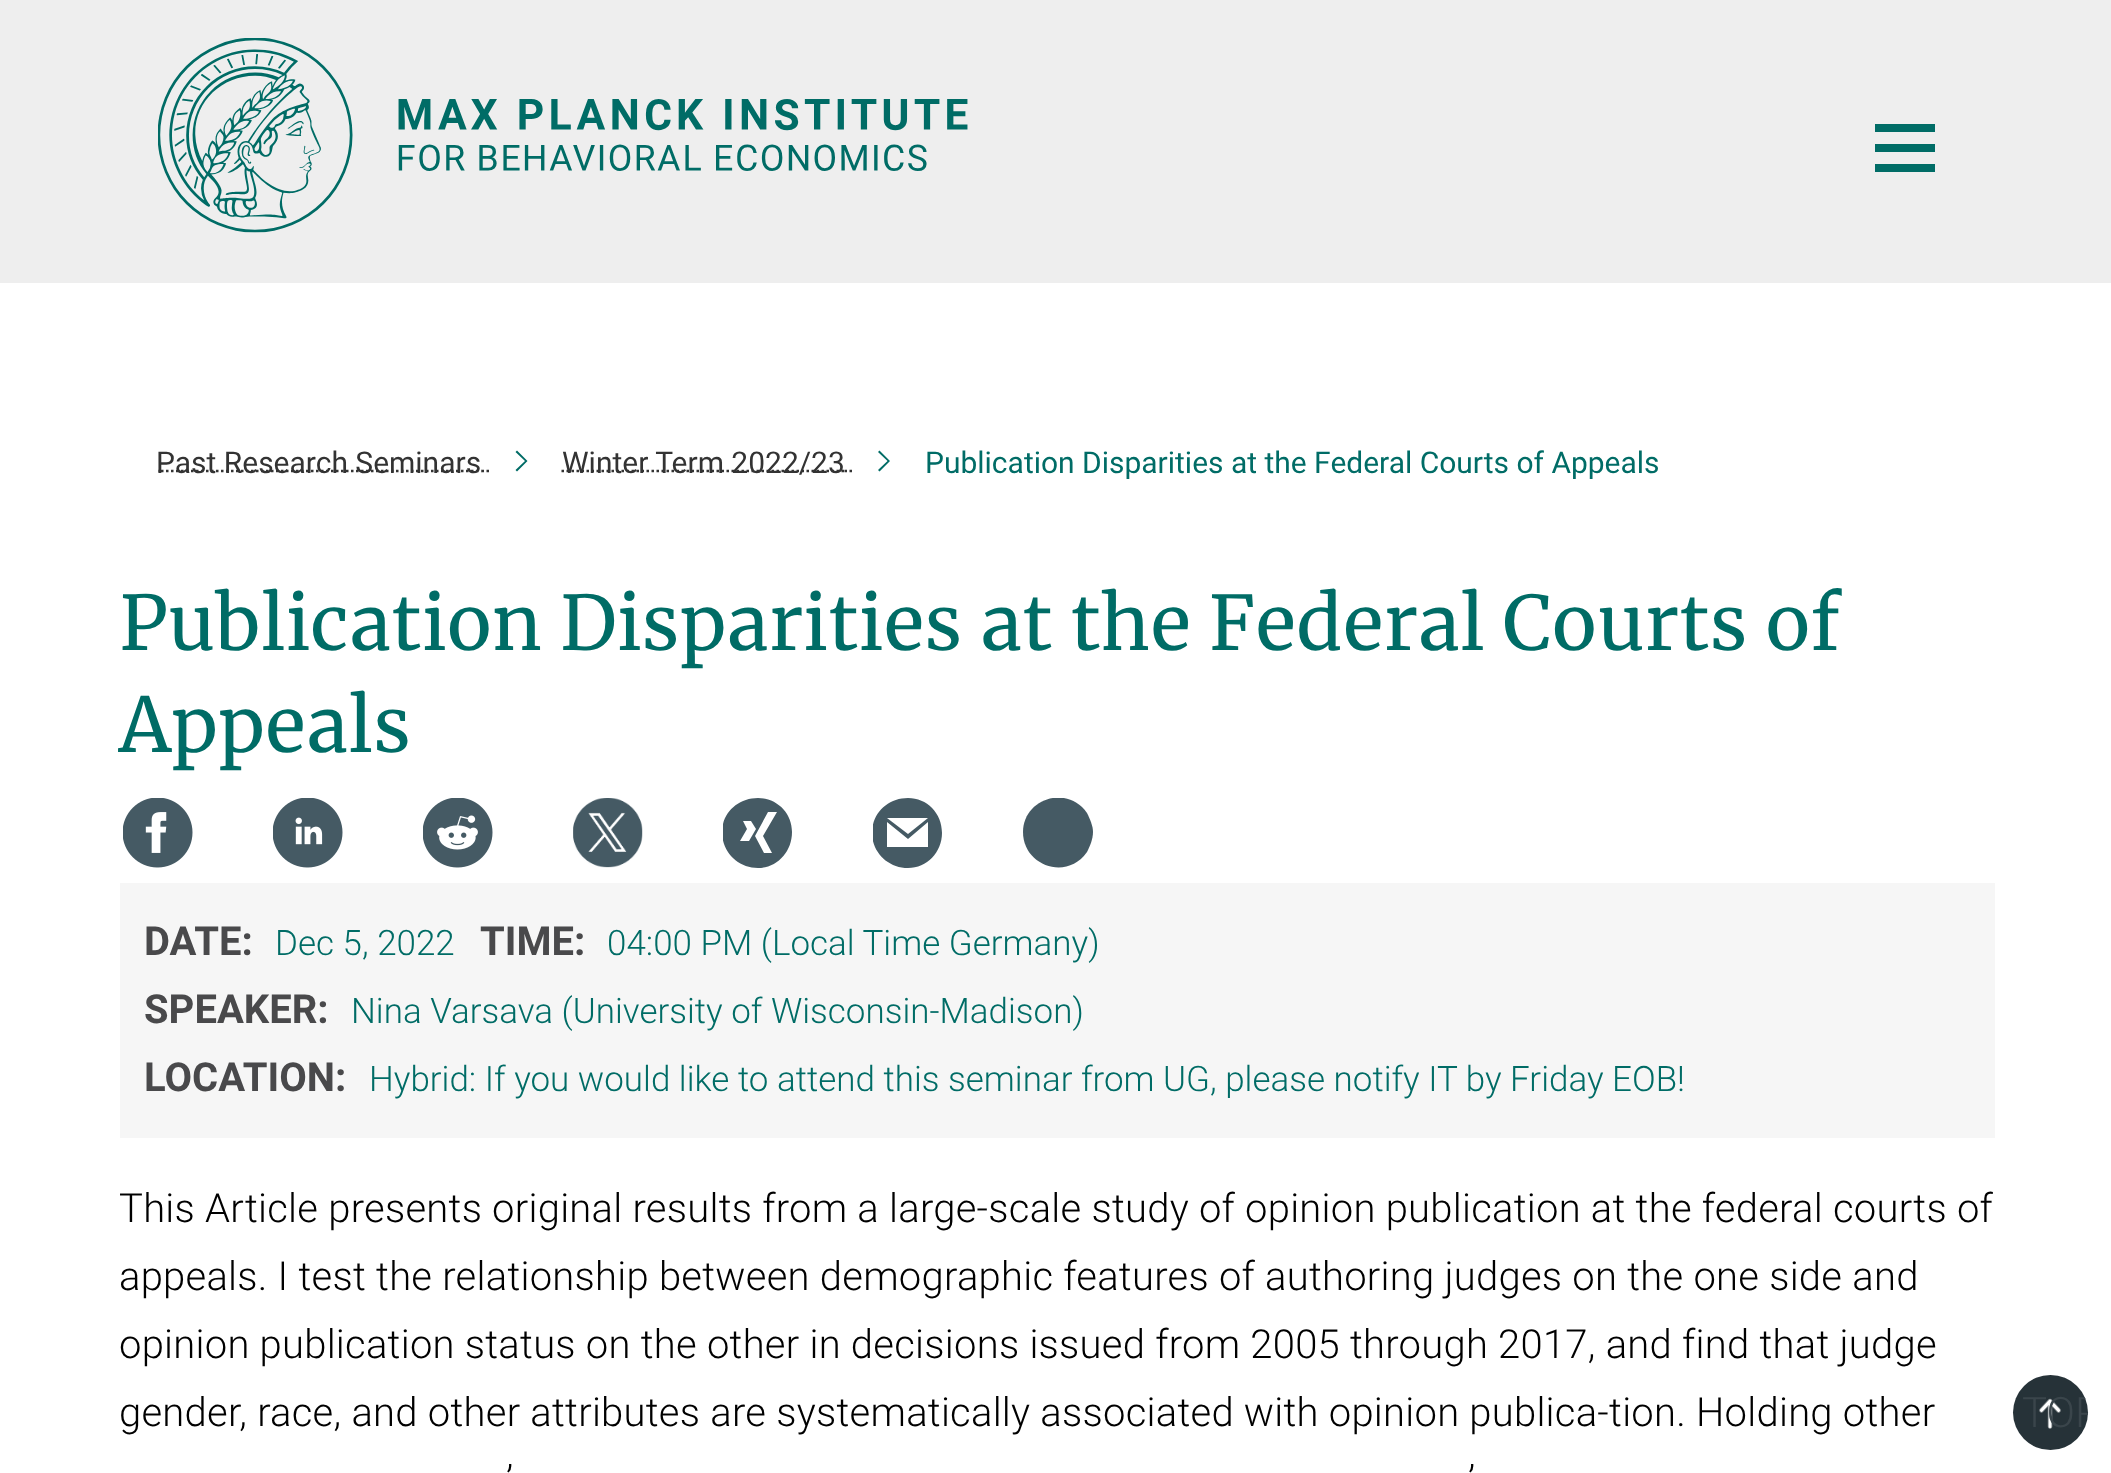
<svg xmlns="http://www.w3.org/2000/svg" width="2111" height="1473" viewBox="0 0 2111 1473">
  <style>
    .t1 { font: 30px Roboto; fill: #333; }
    .t2 { font: 30px Roboto; fill: #006c66; }
    .t3 { font: 75px Merriweather; fill: #006c66; }
    .t4 { font: bold 40px Roboto; fill: #49494b; }
    .t5 { font: 300 35px Roboto; fill: #006c66; }
    .t6 { font: 300 40px Roboto; letter-spacing: 0.25px; fill: #000; }
    .t7 { font: 300 42px Roboto; fill: #3a454b; }
  </style>
  <defs>
    <clipPath id="clip1"><rect x="158" y="385" width="1800" height="148"/></clipPath>
    <clipPath id="clip2"><rect x="723" y="798" width="70" height="70"/></clipPath>
    <clipPath id="clip3"><rect x="873" y="798" width="70" height="70"/></clipPath>
    <clipPath id="clip4"><rect x="1023" y="798" width="70" height="70"/></clipPath>
    <clipPath id="clip5"><rect x="2013" y="1375" width="75" height="75" rx="37.5"/></clipPath>
  </defs>
  <rect width="100%" height="100%" fill="#fff"/>
  <rect x="0" y="0" width="2111" height="283" fill="#eee"/>
  <image x="158" y="38" width="810" height="195" href="images/1.png"/>
  <rect x="1875" y="124" width="60" height="8" fill="#006c66"/>
  <rect x="1875" y="144" width="60" height="8" fill="#006c66"/>
  <rect x="1875" y="164" width="60" height="8" fill="#006c66"/>
  <g clip-path="url(#clip1)">
    <path d="M156 471H481.5" fill="none" stroke="#333" stroke-width="2.5" stroke-dasharray="2.5 2.5"/>
  </g>
  <text x="156" y="473" class="t1">Past Research Seminars</text>
  <path d="M481.5 471H484M486.5 471H489" fill="none" stroke="#333" stroke-width="2.5"/>
  <path d="M561.5 471H844.5" fill="none" stroke="#333" stroke-width="2.5" stroke-dasharray="2.5 2.5"/>
  <text x="562" y="473" class="t1">Winter Term 2022/23</text>
  <path d="M515.5 470L525 461L515.5 452L517 450.5L527.5 461L517 471.5Z" fill="#006c66"/>
  <path d="M844.5 471H847M849.5 471H852" fill="none" stroke="#333" stroke-width="2.5"/>
  <text x="925" y="473" class="t2">Publication Disparities at the Federal Courts of Appeals</text>
  <path d="M878 470L887.5 461L878 452L879.5 450.5L890 461L879.5 471.5Z" fill="#006c66"/>
  <text x="119" y="650" class="t3">Publication Disparities at the Federal Courts of</text>
  <text x="119" y="752" class="t3">Appeals</text>
  <image x="123" y="798" width="70" height="70" href="images/2.png"/>
  <image x="273" y="798" width="70" height="70" href="images/3.png"/>
  <image x="423" y="798" width="70" height="70" href="images/4.png"/>
  <image x="573" y="798" width="70" height="70" href="images/5.png"/>
  <g clip-path="url(#clip2)">
    <path d="M758 798C738 798 722 813 722 832C722 852 738 868 758 868C777 868 792 852 792 832C792 813 777 798 758 798ZM740 841L747 829L743 821H751L756 829L749 841ZM772 853H764L755 836L768 812H777L763 836Z" fill="#455a64"/>
  </g>
  <g clip-path="url(#clip3)">
    <path d="M908 798C888 798 872 813 872 833C872 852 888 868 908 868C927 868 942 852 942 833C942 813 927 798 908 798ZM928 818L908 834L887 818ZM928 847H887V822L908 839L928 822Z" fill="#455a64"/>
  </g>
  <g clip-path="url(#clip4)">
    <path d="M1093 832C1093 839 1090 846 1087 852C1067 881 1023 866 1023 832C1023 799 1067 784 1087 813C1090 819 1093 826 1093 832Z" fill="#455a64"/>
  </g>
  <rect x="120" y="883" width="1875" height="255" fill="#f6f6f6"/>
  <text x="144" y="955" class="t4">DATE:</text>
  <text x="275" y="955" class="t5">Dec 5, 2022</text>
  <text x="480" y="955" class="t4">TIME:</text>
  <text x="607" y="955" class="t5">04:00 PM (Local Time Germany)</text>
  <text x="144" y="1023" class="t4">SPEAKER:</text>
  <text x="351" y="1023" class="t5">Nina Varsava (University of Wisconsin-Madison)</text>
  <text x="144" y="1091" class="t4">LOCATION:</text>
  <text x="369" y="1091" class="t5">Hybrid: If you would like to attend this seminar from UG, please notify IT by Friday EOB!</text>
  <text x="119" y="1222" class="t6">This Article presents original results from a large-scale study of opinion publication at the federal courts of</text>
  <text x="119" y="1290" class="t6">appeals. I test the relationship between demographic features of authoring judges on the one side and</text>
  <text x="119" y="1358" class="t6">opinion publication status on the other in decisions issued from 2005 through 2017, and find that judge</text>
  <text x="119" y="1426" class="t6">gender, race, and other attributes are systematically associated with opinion publica-tion. Holding other</text>
  <text x="506" y="1494" class="t6">’</text>
  <text x="1468" y="1494" class="t6">’</text>
  <circle cx="2050.5" cy="1412.5" r="37.5" fill="#263238"/>
  <image x="2039" y="1398" width="22" height="31" href="images/6.png"/>
  <g clip-path="url(#clip5)">
    <text x="2022" y="1427" class="t7">TOP</text>
  </g>
</svg>
